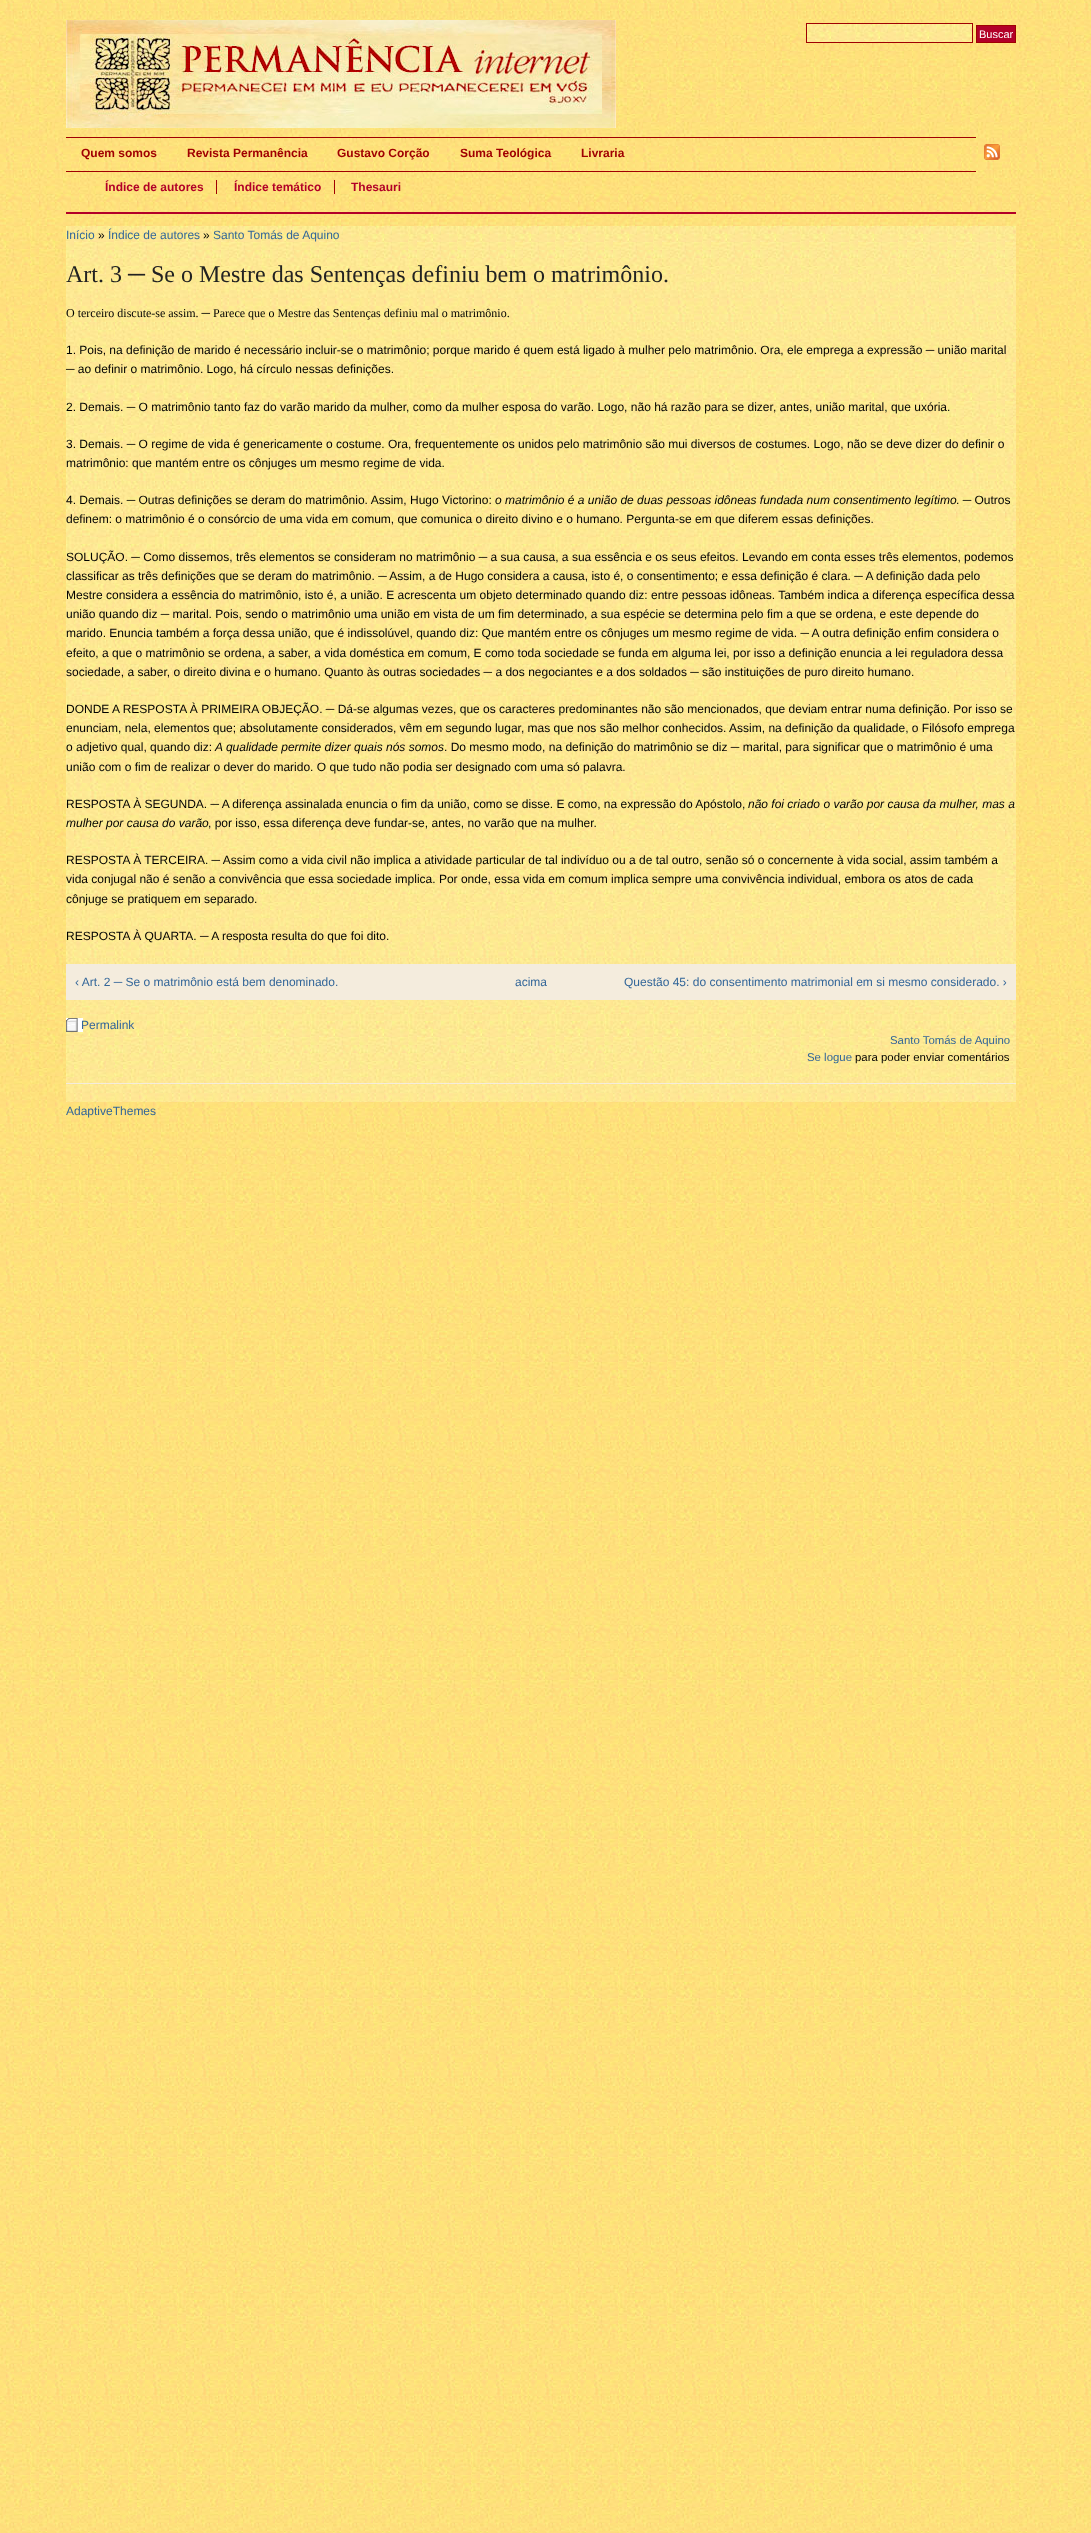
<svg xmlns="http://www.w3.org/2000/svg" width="1091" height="2533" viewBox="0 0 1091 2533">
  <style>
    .t1 { font: 11px Liberation Sans; fill: #fff; }
    .t2 { font: bold 12px Liberation Sans; fill: #a00002; }
    .t3 { font: bold 12px Liberation Sans; fill: #b20028; }
    .t4 { font: 12px Liberation Sans; fill: #369; }
    .t5 { font: 12px Liberation Sans; fill: #000; }
    .t6 { font: 24px Liberation Serif; fill: #222; }
    .t7 { font: 12px Liberation Serif; fill: #000; }
    .t8 { font: italic 12px Liberation Sans; fill: #000; }
    .t9 { font: 11.4px Liberation Sans; fill: #369; }
    .t10 { font: 11.4px Liberation Sans; fill: #000; }
  </style>
  <rect width="100%" height="100%" fill="#fff"/>
  <image x="0" y="0" width="1091" height="2533" href="images/1.png"/>
  <image x="66" y="20" width="550" height="108" href="images/2.png"/>
  <image x="807" y="24" width="165" height="18" href="images/3.png"/>
  <rect x="806.5" y="23.5" width="166" height="19" fill="none" stroke="#a00002"/>
  <rect x="976.5" y="25.5" width="39" height="17" fill="#b20028" stroke="#a00002"/>
  <text x="979" y="38" class="t1">Buscar</text>
  <rect x="66" y="137" width="910" height="1" fill="#a00002"/>
  <rect x="66" y="171" width="910" height="1" fill="#a00002"/>
  <text x="81" y="157" class="t2">Quem somos</text>
  <text x="187" y="157" class="t2">Revista Permanência</text>
  <text x="337" y="157" class="t2">Gustavo Corção</text>
  <text x="460" y="157" class="t2">Suma Teológica</text>
  <text x="581" y="157" class="t2">Livraria</text>
  <image x="984" y="144" width="16" height="16" href="images/4.png"/>
  <rect x="66" y="212" width="950" height="2" fill="#b20028"/>
  <text x="105" y="191" class="t3">Índice de autores</text>
  <rect x="216" y="180" width="1" height="14" fill="#a00002"/>
  <text x="234" y="191" class="t3">Índice temático</text>
  <rect x="334" y="180" width="1" height="14" fill="#a00002"/>
  <text x="351" y="191" class="t3">Thesauri</text>
  <image x="66" y="226" width="950" height="876" href="images/5.png"/>
  <text x="66" y="239" class="t4">Início</text>
  <text x="98" y="239" class="t5">»</text>
  <text x="108" y="239" class="t4">Índice de autores</text>
  <text x="203" y="239" class="t5">»</text>
  <text x="213" y="239" class="t4">Santo Tomás de Aquino</text>
  <text x="66" y="282" class="t6">Art. 3 ─ Se o Mestre das Sentenças definiu bem o matrimônio.</text>
  <rect x="66" y="1083" width="950" height="1" fill="#f4ecdd"/>
  <text x="66" y="317" class="t7">O terceiro discute-se assim. ─ Parece que o Mestre das Sentenças definiu mal o matrimônio.</text>
  <text x="66" y="354" class="t5">1. Pois, na definição de marido é necessário incluir-se o matrimônio; porque marido é quem está ligado à mulher pelo matrimônio. Ora, ele emprega a expressão ─ união marital</text>
  <text x="66" y="373" class="t5">─ ao definir o matrimônio. Logo, há círculo nessas definições.</text>
  <text x="66" y="411" class="t5">2. Demais. ─ O matrimônio tanto faz do varão marido da mulher, como da mulher esposa do varão. Logo, não há razão para se dizer, antes, união marital, que uxória.</text>
  <text x="66" y="448" class="t5">3. Demais. ─ O regime de vida é genericamente o costume. Ora, frequentemente os unidos pelo matrimônio são mui diversos de costumes. Logo, não se deve dizer do definir o</text>
  <text x="66" y="467" class="t5">matrimônio: que mantém entre os cônjuges um mesmo regime de vida.</text>
  <text x="66" y="504" class="t5">4. Demais. ─ Outras definições se deram do matrimônio. Assim, Hugo Victorino:</text>
  <text x="495" y="504" class="t8">o matrimônio é a união de duas pessoas idôneas fundada num consentimento legítimo</text>
  <text x="956" y="504" class="t5">. ─ Outros</text>
  <text x="66" y="523" class="t5">definem: o matrimônio é o consórcio de uma vida em comum, que comunica o direito divino e o humano. Pergunta-se em que diferem essas definições.</text>
  <text x="66" y="561" class="t5">SOLUÇÃO. ─ Como dissemos, três elementos se consideram no matrimônio ─ a sua causa, a sua essência e os seus efeitos. Levando em conta esses três elementos, podemos</text>
  <text x="66" y="580" class="t5">classificar as três definições que se deram do matrimônio. ─ Assim, a de Hugo considera a causa, isto é, o consentimento; e essa definição é clara. ─ A definição dada pelo</text>
  <text x="66" y="599" class="t5">Mestre considera a essência do matrimônio, isto é, a união. E acrescenta um objeto determinado quando diz: entre pessoas idôneas. Também indica a diferença específica dessa</text>
  <text x="66" y="618" class="t5">união quando diz ─ marital. Pois, sendo o matrimônio uma união em vista de um fim determinado, a sua espécie se determina pelo fim a que se ordena, e este depende do</text>
  <text x="66" y="637" class="t5">marido. Enuncia também a força dessa união, que é indissolúvel, quando diz: Que mantém entre os cônjuges um mesmo regime de vida. ─ A outra definição enfim considera o</text>
  <text x="66" y="657" class="t5">efeito, a que o matrimônio se ordena, a saber, a vida doméstica em comum, E como toda sociedade se funda em alguma lei, por isso a definição enuncia a lei reguladora dessa</text>
  <text x="66" y="676" class="t5">sociedade, a saber, o direito divina e o humano. Quanto às outras sociedades ─ a dos negociantes e a dos soldados ─ são instituições de puro direito humano.</text>
  <text x="66" y="713" class="t5">DONDE A RESPOSTA À PRIMEIRA OBJEÇÃO. ─ Dá-se algumas vezes, que os caracteres predominantes não são mencionados, que deviam entrar numa definição. Por isso se</text>
  <text x="66" y="732" class="t5">enunciam, nela, elementos que; absolutamente considerados, vêm em segundo lugar, mas que nos são melhor conhecidos. Assim, na definição da qualidade, o Filósofo emprega</text>
  <text x="66" y="751" class="t5">o adjetivo qual, quando diz:</text>
  <text x="215" y="751" class="t8">A qualidade permite dizer quais nós somos</text>
  <text x="444" y="751" class="t5">. Do mesmo modo, na definição do matrimônio se diz ─ marital, para significar que o matrimônio é uma</text>
  <text x="66" y="771" class="t5">união com o fim de realizar o dever do marido. O que tudo não podia ser designado com uma só palavra.</text>
  <text x="66" y="808" class="t5">RESPOSTA À SEGUNDA. ─ A diferença assinalada enuncia o fim da união, como se disse. E como, na expressão do Apóstolo,</text>
  <text x="748" y="808" class="t8">não foi criado o varão por causa da mulher, mas a</text>
  <text x="66" y="827" class="t8">mulher por causa do varão</text>
  <text x="208" y="827" class="t5">, por isso, essa diferença deve fundar-se, antes, no varão que na mulher.</text>
  <text x="66" y="864" class="t5">RESPOSTA À TERCEIRA. ─ Assim como a vida civil não implica a atividade particular de tal indivíduo ou a de tal outro, senão só o concernente à vida social, assim também a</text>
  <text x="66" y="883" class="t5">vida conjugal não é senão a convivência que essa sociedade implica. Por onde, essa vida em comum implica sempre uma convivência individual, embora os atos de cada</text>
  <text x="66" y="903" class="t5">cônjuge se pratiquem em separado.</text>
  <text x="66" y="940" class="t5">RESPOSTA À QUARTA. ─ A resposta resulta do que foi dito.</text>
  <rect x="66" y="964" width="950" height="36" fill="#f4ecdd"/>
  <text x="75" y="986" class="t4">‹ Art. 2 ─ Se o matrimônio está bem denominado.</text>
  <text x="515" y="986" class="t4">acima</text>
  <text x="624" y="986" class="t4">Questão 45: do consentimento matrimonial em si mesmo considerado. ›</text>
  <image x="66" y="1018" width="17" height="14" href="images/6.png"/>
  <text x="81" y="1029" class="t4">Permalink</text>
  <text x="890" y="1044" class="t9">Santo Tomás de Aquino</text>
  <text x="807" y="1061" class="t9">Se logue</text>
  <text x="855" y="1061" class="t10">para poder enviar comentários</text>
  <text x="66" y="1115" class="t4">AdaptiveThemes</text>
</svg>
